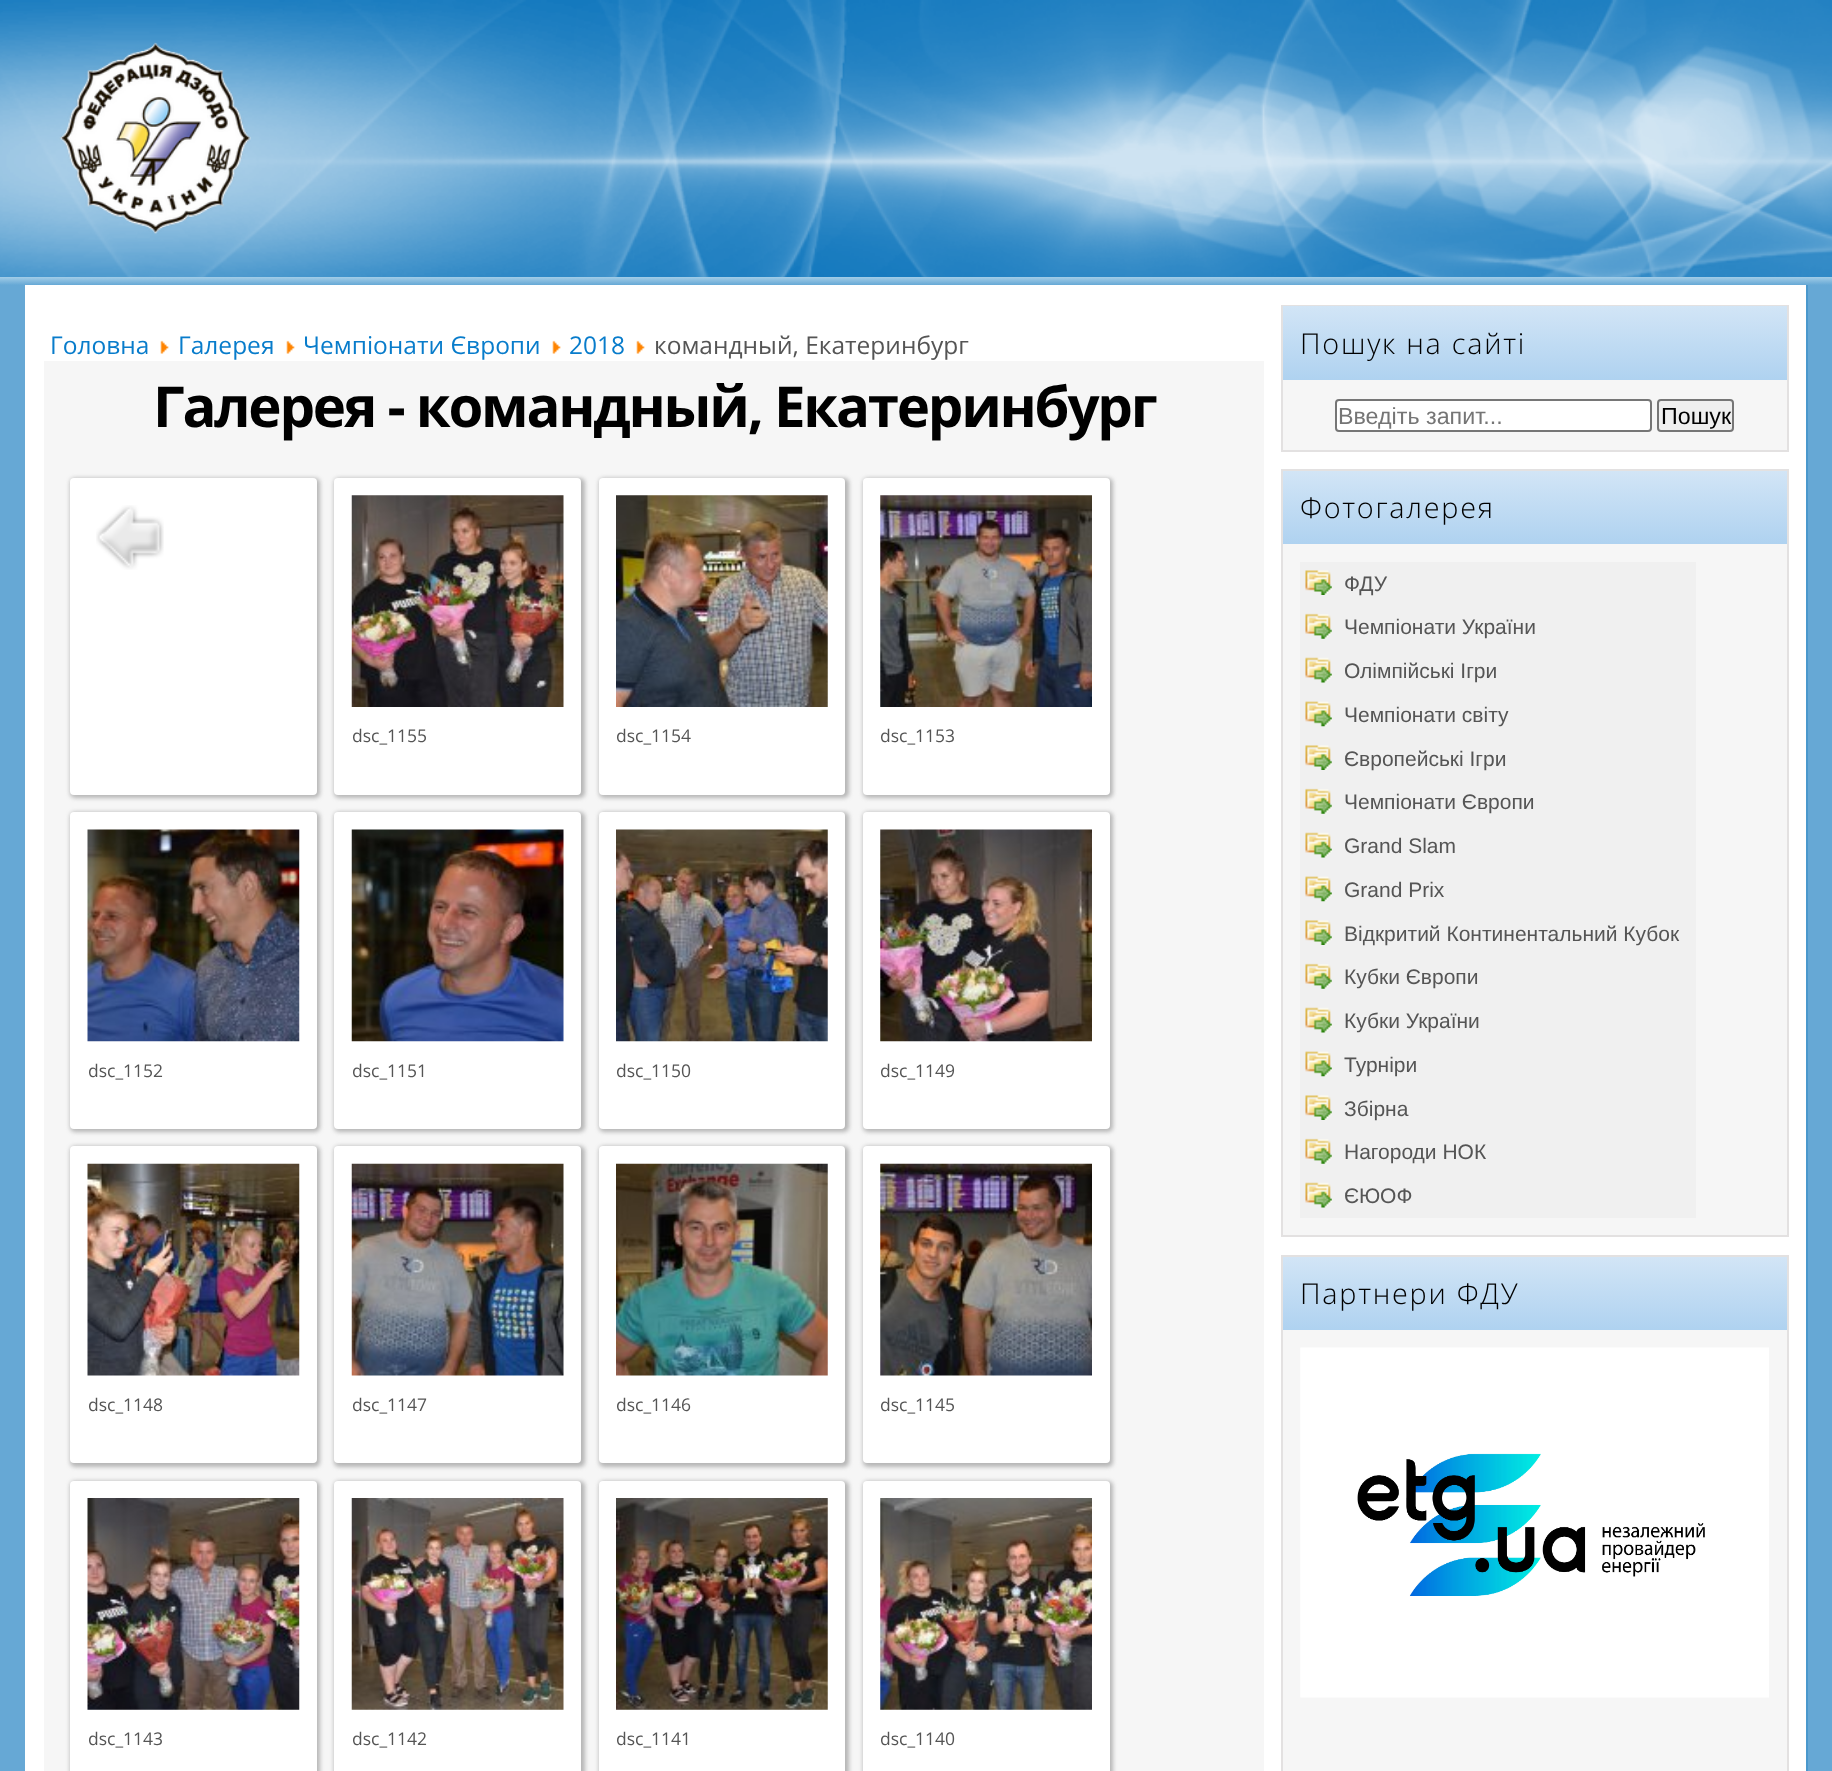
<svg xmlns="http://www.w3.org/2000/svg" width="1832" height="1771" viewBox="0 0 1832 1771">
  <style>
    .t1 { font: 24.5px Open Sans; fill: #087ccb; }
    .t2 { font: 24.5px Open Sans; fill: #555; }
    .t3 { font: 300 28.75px Open Sans; letter-spacing: 1.75px; fill: #000; }
    .t4 { font: 23.25px Liberation Sans; fill: #757575; }
    .t5 { font: 23.25px Liberation Sans; fill: #000; }
    .t6 { font: 21px Liberation Sans; fill: #555; }
    .t7 { font: bold 56.4px Open Sans; letter-spacing: -2.25px; fill: #000; }
    .t8 { font: 17.5px Open Sans; fill: #555; }
  </style>
  <defs>
    <linearGradient id="g1" gradientUnits="userSpaceOnUse" x1="916" y1="276" x2="916" y2="285"><stop offset="0" stop-color="#aad2ea"/><stop offset="1" stop-color="#66a8d5"/></linearGradient>
    <linearGradient id="g2" gradientUnits="userSpaceOnUse" x1="916" y1="287" x2="916" y2="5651"><stop offset="0" stop-color="#d7e9f7"/><stop offset="0" stop-color="#fff"/></linearGradient>
    <linearGradient id="g3" gradientUnits="userSpaceOnUse" x1="1535" y1="306" x2="1535" y2="380"><stop offset="0" stop-color="#d2e5f6"/><stop offset="1" stop-color="#afd2f0"/></linearGradient>
    <linearGradient id="g4" gradientUnits="userSpaceOnUse" x1="1535" y1="471" x2="1535" y2="544"><stop offset="0" stop-color="#d2e5f6"/><stop offset="1" stop-color="#afd2f0"/></linearGradient>
    <linearGradient id="g5" gradientUnits="userSpaceOnUse" x1="1535" y1="1257" x2="1535" y2="1330"><stop offset="0" stop-color="#d2e5f6"/><stop offset="1" stop-color="#afd2f0"/></linearGradient>
  </defs>
  <rect width="100%" height="100%" fill="#006eb9"/>
  <image x="0" y="0" width="1832" height="277" href="images/1.png"/>
  <image x="59" y="42" width="192" height="192" href="images/2.png"/>
  <rect x="0" y="277" width="1832" height="8" fill="url(#g1)"/>
  <rect x="0" y="285" width="1832" height="1486" fill="#66a8d5"/>
  <rect x="25" y="287" width="1781" height="1484" fill="url(#g2)"/>
  <rect x="25" y="285" width="1783" height="2" fill="#fff"/>
  <rect x="1806" y="285" width="2" height="1486" fill="#4a98cd"/>
  <text x="50" y="354" class="t1">Головна</text>
  <image x="160" y="340" width="9" height="14" href="images/3.png"/>
  <text x="178" y="354" class="t1">Галерея</text>
  <image x="286" y="340" width="9" height="14" href="images/4.png"/>
  <text x="303" y="354" class="t1">Чемпіонати Європи</text>
  <image x="552" y="340" width="9" height="14" href="images/4.png"/>
  <text x="569" y="354" class="t1">2018</text>
  <image x="636" y="340" width="9" height="14" href="images/4.png"/>
  <text x="654" y="354" class="t2">командный, Екатеринбург</text>
  <rect x="1283" y="380" width="504" height="70" fill="#f6f6f6"/>
  <rect x="1282" y="306" width="506" height="145" fill="none" stroke="#e3e1e1" stroke-width="2"/>
  <rect x="1283" y="306" width="504" height="74" fill="url(#g3)"/>
  <text x="1300" y="354" class="t3">Пошук на сайті</text>
  <rect x="1336" y="400" width="315" height="31" rx="3" fill="#fff" stroke="#767676" stroke-width="2"/>
  <text x="1338" y="424" class="t4">Введіть запит...</text>
  <rect x="1658" y="400" width="75" height="31" rx="3" fill="#efefef" stroke="#767676" stroke-width="2"/>
  <text x="1661" y="424" class="t5">Пошук</text>
  <rect x="1283" y="544" width="504" height="691" fill="#f6f6f6"/>
  <rect x="1282" y="470" width="506" height="766" fill="none" stroke="#e3e1e1" stroke-width="2"/>
  <rect x="1283" y="471" width="504" height="73" fill="url(#g4)"/>
  <text x="1300" y="518" class="t3">Фотогалерея</text>
  <rect x="1300" y="562" width="396" height="656" fill="#f0f0f0"/>
  <image x="1305" y="570" width="27" height="25" href="images/5.png"/>
  <text x="1344" y="591" class="t6">ФДУ</text>
  <image x="1305" y="613" width="27" height="26" href="images/6.png"/>
  <text x="1344" y="634" class="t6">Чемпіонати України</text>
  <image x="1305" y="657" width="27" height="26" href="images/7.png"/>
  <text x="1344" y="678" class="t6">Олімпійські Ігри</text>
  <image x="1305" y="701" width="27" height="26" href="images/8.png"/>
  <text x="1344" y="722" class="t6">Чемпіонати світу</text>
  <image x="1305" y="745" width="27" height="25" href="images/5.png"/>
  <text x="1344" y="766" class="t6">Європейські Ігри</text>
  <image x="1305" y="788" width="27" height="26" href="images/6.png"/>
  <text x="1344" y="809" class="t6">Чемпіонати Європи</text>
  <image x="1305" y="832" width="27" height="26" href="images/7.png"/>
  <text x="1344" y="853" class="t6">Grand Slam</text>
  <image x="1305" y="876" width="27" height="26" href="images/8.png"/>
  <text x="1344" y="897" class="t6">Grand Prix</text>
  <image x="1305" y="920" width="27" height="25" href="images/5.png"/>
  <text x="1344" y="941" class="t6">Відкритий Континентальний Кубок</text>
  <image x="1305" y="963" width="27" height="26" href="images/6.png"/>
  <text x="1344" y="984" class="t6">Кубки Європи</text>
  <image x="1305" y="1007" width="27" height="26" href="images/7.png"/>
  <text x="1344" y="1028" class="t6">Кубки України</text>
  <image x="1305" y="1051" width="27" height="26" href="images/8.png"/>
  <text x="1344" y="1072" class="t6">Турніри</text>
  <image x="1305" y="1095" width="27" height="25" href="images/5.png"/>
  <text x="1344" y="1116" class="t6">Збірна</text>
  <image x="1305" y="1138" width="27" height="26" href="images/6.png"/>
  <text x="1344" y="1159" class="t6">Нагороди НОК</text>
  <image x="1305" y="1182" width="27" height="26" href="images/7.png"/>
  <text x="1344" y="1203" class="t6">ЄЮОФ</text>
  <rect x="1283" y="1330" width="504" height="441" fill="#f6f6f6"/>
  <rect x="1282" y="1256" width="506" height="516" fill="none" stroke="#e3e1e1" stroke-width="2"/>
  <rect x="1283" y="1257" width="504" height="73" fill="url(#g5)"/>
  <text x="1300" y="1304" class="t3">Партнери ФДУ</text>
  <image x="1300" y="1347" width="469" height="351" href="images/9.png"/>
  <rect x="44" y="361" width="1220" height="1410" fill="#f6f6f6"/>
  <text x="153" y="427" class="t7">Галерея - командный, Екатеринбург</text>
  <rect x="70" y="478" width="250" height="320" rx="5" fill="#78787880" filter="blur(2px)"/>
  <rect x="70" y="478" width="247" height="317" rx="4" fill="#fff"/>
  <image x="96" y="505" width="68" height="65" href="images/10.png"/>
  <rect x="334" y="478" width="251" height="320" rx="5" fill="#78787880" filter="blur(2px)"/>
  <rect x="334" y="478" width="247" height="317" rx="4" fill="#fff"/>
  <image x="351" y="495" width="213" height="212" href="images/11.png"/>
  <text x="352" y="742" class="t8">dsc_1155</text>
  <rect x="599" y="478" width="250" height="320" rx="5" fill="#78787880" filter="blur(2px)"/>
  <rect x="599" y="478" width="246" height="317" rx="4" fill="#fff"/>
  <image x="616" y="495" width="212" height="212" href="images/12.png"/>
  <text x="616" y="742" class="t8">dsc_1154</text>
  <rect x="863" y="478" width="250" height="320" rx="5" fill="#78787880" filter="blur(2px)"/>
  <rect x="863" y="478" width="247" height="317" rx="4" fill="#fff"/>
  <image x="880" y="495" width="212" height="212" href="images/13.png"/>
  <text x="880" y="742" class="t8">dsc_1153</text>
  <rect x="70" y="812" width="250" height="320" rx="5" fill="#78787880" filter="blur(2px)"/>
  <rect x="70" y="812" width="247" height="317" rx="4" fill="#fff"/>
  <image x="87" y="829" width="213" height="213" href="images/14.png"/>
  <text x="88" y="1077" class="t8">dsc_1152</text>
  <rect x="334" y="812" width="251" height="320" rx="5" fill="#78787880" filter="blur(2px)"/>
  <rect x="334" y="812" width="247" height="317" rx="4" fill="#fff"/>
  <image x="351" y="829" width="213" height="213" href="images/15.png"/>
  <text x="352" y="1077" class="t8">dsc_1151</text>
  <rect x="599" y="812" width="250" height="320" rx="5" fill="#78787880" filter="blur(2px)"/>
  <rect x="599" y="812" width="246" height="317" rx="4" fill="#fff"/>
  <image x="616" y="829" width="212" height="213" href="images/16.png"/>
  <text x="616" y="1077" class="t8">dsc_1150</text>
  <rect x="863" y="812" width="250" height="320" rx="5" fill="#78787880" filter="blur(2px)"/>
  <rect x="863" y="812" width="247" height="317" rx="4" fill="#fff"/>
  <image x="880" y="829" width="212" height="213" href="images/17.png"/>
  <text x="880" y="1077" class="t8">dsc_1149</text>
  <rect x="70" y="1146" width="250" height="321" rx="5" fill="#78787880" filter="blur(2px)"/>
  <rect x="70" y="1146" width="247" height="317" rx="4" fill="#fff"/>
  <image x="87" y="1163" width="213" height="213" href="images/18.png"/>
  <text x="88" y="1411" class="t8">dsc_1148</text>
  <rect x="334" y="1146" width="251" height="321" rx="5" fill="#78787880" filter="blur(2px)"/>
  <rect x="334" y="1146" width="247" height="317" rx="4" fill="#fff"/>
  <image x="351" y="1163" width="213" height="213" href="images/19.png"/>
  <text x="352" y="1411" class="t8">dsc_1147</text>
  <rect x="599" y="1146" width="250" height="321" rx="5" fill="#78787880" filter="blur(2px)"/>
  <rect x="599" y="1146" width="246" height="317" rx="4" fill="#fff"/>
  <image x="616" y="1163" width="212" height="213" href="images/20.png"/>
  <text x="616" y="1411" class="t8">dsc_1146</text>
  <rect x="863" y="1146" width="250" height="321" rx="5" fill="#78787880" filter="blur(2px)"/>
  <rect x="863" y="1146" width="247" height="317" rx="4" fill="#fff"/>
  <image x="880" y="1163" width="212" height="213" href="images/21.png"/>
  <text x="880" y="1411" class="t8">dsc_1145</text>
  <rect x="70" y="1481" width="250" height="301" rx="5" fill="#78787880" filter="blur(2px)"/>
  <rect x="70" y="1481" width="247" height="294" rx="4" fill="#fff"/>
  <image x="87" y="1498" width="213" height="212" href="images/22.png"/>
  <text x="88" y="1745" class="t8">dsc_1143</text>
  <rect x="334" y="1481" width="251" height="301" rx="5" fill="#78787880" filter="blur(2px)"/>
  <rect x="334" y="1481" width="247" height="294" rx="4" fill="#fff"/>
  <image x="351" y="1498" width="213" height="212" href="images/23.png"/>
  <text x="352" y="1745" class="t8">dsc_1142</text>
  <rect x="599" y="1481" width="250" height="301" rx="5" fill="#78787880" filter="blur(2px)"/>
  <rect x="599" y="1481" width="246" height="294" rx="4" fill="#fff"/>
  <image x="616" y="1498" width="212" height="212" href="images/24.png"/>
  <text x="616" y="1745" class="t8">dsc_1141</text>
  <rect x="863" y="1481" width="250" height="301" rx="5" fill="#78787880" filter="blur(2px)"/>
  <rect x="863" y="1481" width="247" height="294" rx="4" fill="#fff"/>
  <image x="880" y="1498" width="212" height="212" href="images/25.png"/>
  <text x="880" y="1745" class="t8">dsc_1140</text>
</svg>
